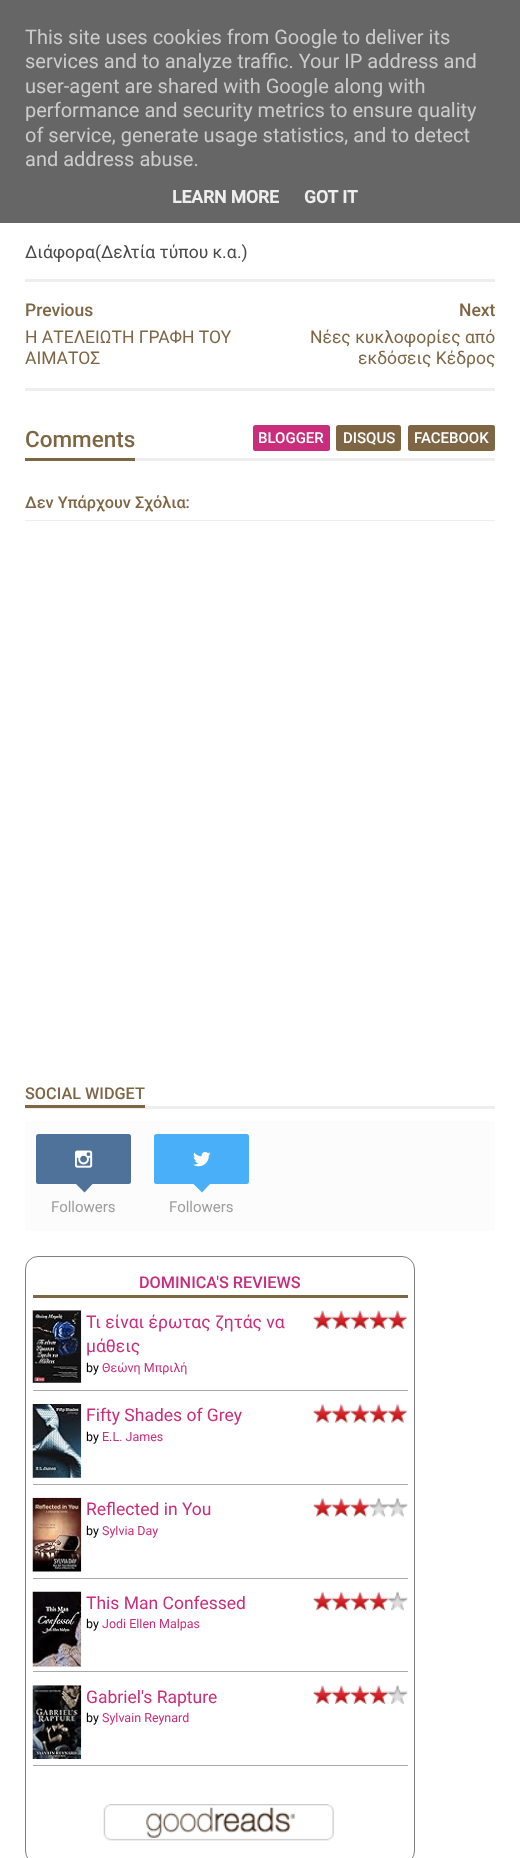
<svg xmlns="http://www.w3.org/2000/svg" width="520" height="1858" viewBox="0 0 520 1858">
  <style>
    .t1 { font: 20px 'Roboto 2'; fill: #ccc; }
    .t2 { font: bold 17.5px Roboto; fill: #eee; }
    .t3 { font: 17.5px Roboto; fill: #494949; }
    .t4 { font: 17.5px 'Roboto 2'; fill: #494949; }
    .t5 { font: 500 17.5px Roboto; fill: #7e6645; }
    .t6 { font: 17.5px Roboto; fill: #7e6645; }
    .t7 { font: 500 22.5px Roboto; fill: #7e6645; }
    .t8 { font: 500 15px Roboto; fill: #fff; }
    .t9 { font: 500 16.25px Roboto; fill: #7e6645; }
    .t10 { font: 15px 'Roboto 2'; fill: #9d9d9d; }
    .t11 { font: 500 16.25px Roboto; fill: #ca2d7b; }
    .t12 { font: 17.5px Roboto; fill: #ca2d7b; }
    .t13 { font: 12.5px 'Roboto 2'; fill: #000; }
    .t14 { font: 12.5px Roboto; fill: #ca2d7b; }
    .t15 { font: 17.5px 'Roboto 2'; fill: #ca2d7b; }
    .t16 { font: 12.5px 'Roboto 2'; fill: #ca2d7b; }
  </style>
  <rect width="100%" height="100%" fill="#fff"/>
  <rect x="0" y="0" width="520" height="223" fill="#666"/>
  <text x="25" y="44" class="t1">This site uses cookies from Google to deliver its</text>
  <text x="25" y="68" class="t1">services and to analyze traffic. Your IP address and</text>
  <text x="25" y="93" class="t1">user-agent are shared with Google along with</text>
  <text x="25" y="117" class="t1">performance and security metrics to ensure quality</text>
  <text x="25" y="142" class="t1">of service, generate usage statistics, and to detect</text>
  <text x="25" y="166" class="t1">and address abuse.</text>
  <text x="172" y="203" class="t2">LEARN MORE</text>
  <text x="304" y="203" class="t2">GOT IT</text>
  <text x="25" y="258" class="t3">Διάφορα</text>
  <text x="95" y="258" class="t4">(</text>
  <text x="101" y="258" class="t3">Δελτία τύπου κ α</text>
  <text x="237" y="258" class="t4">.)</text>
  <text x="222" y="258" class="t4">.</text>
  <rect x="25" y="279" width="470" height="3" fill="#eee"/>
  <rect x="25" y="388" width="470" height="3" fill="#eee"/>
  <text x="25" y="316" class="t5">Previous</text>
  <text x="25" y="343" class="t6">Η ΑΤΕΛΕΙΩΤΗ ΓΡΑΦΗ ΤΟΥ</text>
  <text x="25" y="364" class="t6">ΑΙΜΑΤΟΣ</text>
  <text x="459" y="316" class="t5">Next</text>
  <text x="310" y="343" class="t6">Νέες κυκλοφορίες από</text>
  <text x="358" y="364" class="t6">εκδόσεις Κέδρος</text>
  <rect x="135" y="458" width="360" height="3" fill="#eee"/>
  <rect x="25" y="458" width="110" height="3" fill="#7e6645"/>
  <text x="25" y="447" class="t7">Comments</text>
  <rect x="253" y="425" width="77" height="26" rx="2.5" fill="#ca2d7b"/>
  <text x="258" y="443" class="t8">BLOGGER</text>
  <rect x="336" y="425" width="65" height="26" rx="2.5" fill="#7e6645"/>
  <text x="343" y="443" class="t8">DISQUS</text>
  <rect x="408" y="425" width="87" height="26" rx="2.5" fill="#7e6645"/>
  <text x="414" y="443" class="t8">FACEBOOK</text>
  <rect x="25" y="520" width="470" height="1" fill="#eee"/>
  <text x="25" y="508" class="t9">Δεν Υπάρχουν Σχόλια:</text>
  <rect x="25" y="1106" width="470" height="3" fill="#eee"/>
  <rect x="25" y="1105" width="120" height="3" fill="#7e6645"/>
  <text x="25" y="1099" class="t9">SOCIAL WIDGET</text>
  <rect x="25" y="1121" width="470" height="110" fill="#fcfcfc"/>
  <rect x="36" y="1134" width="95" height="50" rx="2.5" fill="#4e729a"/>
  <image x="75" y="1150" width="18" height="18" href="images/1.png"/>
  <path d="M84.5 1192.5L75.5 1183.5L84 1174.5L93 1183.5Z" fill="#4e729a"/>
  <text x="51" y="1212" class="t10">Followers</text>
  <rect x="154" y="1134" width="95" height="50" rx="2.5" fill="#49aff8"/>
  <image x="193" y="1152" width="18" height="15" href="images/2.png"/>
  <path d="M202 1192.5L193 1183.5L201.5 1174.5L210.5 1183.5Z" fill="#49aff8"/>
  <text x="169" y="1212" class="t10">Followers</text>
  <rect x="25.5" y="1256.5" width="389" height="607" rx="12.5" fill="none" stroke="#808080"/>
  <rect x="33" y="1295" width="375" height="3" fill="#7e6645"/>
  <text x="139" y="1288" class="t11">DOMINICA'S REVIEWS</text>
  <rect x="33" y="1390" width="375" height="1" fill="#aaa"/>
  <image x="32" y="1310" width="50" height="73" href="images/3.png"/>
  <text x="86" y="1328" class="t12">Τι είναι έρωτας ζητάς να</text>
  <text x="86" y="1352" class="t12">μάθεις</text>
  <image x="313" y="1310" width="20" height="19" href="images/4.png"/>
  <image x="332" y="1310" width="20" height="19" href="images/5.png"/>
  <image x="351" y="1310" width="19" height="19" href="images/6.png"/>
  <image x="370" y="1310" width="19" height="19" href="images/7.png"/>
  <image x="388" y="1310" width="20" height="19" href="images/8.png"/>
  <text x="86" y="1372" class="t13">by</text>
  <text x="102" y="1372" class="t14">Θεώνη Μπριλή</text>
  <rect x="33" y="1484" width="375" height="1" fill="#aaa"/>
  <image x="32" y="1404" width="50" height="74" href="images/9.png"/>
  <text x="86" y="1421" class="t15">Fifty Shades of Grey</text>
  <image x="313" y="1404" width="20" height="19" href="images/10.png"/>
  <image x="332" y="1404" width="20" height="19" href="images/11.png"/>
  <image x="351" y="1404" width="19" height="19" href="images/12.png"/>
  <image x="370" y="1404" width="19" height="19" href="images/13.png"/>
  <image x="388" y="1404" width="20" height="19" href="images/14.png"/>
  <text x="86" y="1441" class="t13">by</text>
  <text x="102" y="1441" class="t16">E.L. James</text>
  <rect x="33" y="1578" width="375" height="1" fill="#aaa"/>
  <image x="32" y="1497" width="50" height="75" href="images/15.png"/>
  <text x="86" y="1515" class="t15">Reflected in You</text>
  <image x="313" y="1498" width="20" height="19" href="images/16.png"/>
  <image x="332" y="1498" width="20" height="19" href="images/17.png"/>
  <image x="351" y="1498" width="19" height="19" href="images/18.png"/>
  <image x="370" y="1498" width="19" height="19" href="images/19.png"/>
  <image x="388" y="1498" width="20" height="19" href="images/20.png"/>
  <text x="86" y="1535" class="t13">by</text>
  <text x="102" y="1535" class="t16">Sylvia Day</text>
  <rect x="33" y="1671" width="375" height="1" fill="#aaa"/>
  <image x="32" y="1591" width="50" height="76" href="images/21.png"/>
  <text x="86" y="1609" class="t15">This Man Confessed</text>
  <image x="313" y="1591" width="20" height="20" href="images/22.png"/>
  <image x="332" y="1591" width="20" height="20" href="images/23.png"/>
  <image x="351" y="1591" width="19" height="20" href="images/24.png"/>
  <image x="370" y="1591" width="19" height="20" href="images/25.png"/>
  <image x="388" y="1591" width="20" height="20" href="images/26.png"/>
  <text x="86" y="1628" class="t13">by</text>
  <text x="102" y="1628" class="t16">Jodi Ellen Malpas</text>
  <rect x="33" y="1765" width="375" height="1" fill="#aaa"/>
  <image x="32" y="1685" width="50" height="74" href="images/27.png"/>
  <text x="86" y="1703" class="t15">Gabriel's Rapture</text>
  <image x="313" y="1685" width="20" height="19" href="images/4.png"/>
  <image x="332" y="1685" width="20" height="19" href="images/5.png"/>
  <image x="351" y="1685" width="19" height="19" href="images/6.png"/>
  <image x="370" y="1685" width="19" height="19" href="images/7.png"/>
  <image x="388" y="1685" width="20" height="19" href="images/28.png"/>
  <text x="86" y="1722" class="t13">by</text>
  <text x="102" y="1722" class="t16">Sylvain Reynard</text>
  <image x="103" y="1804" width="231" height="37" href="images/29.png"/>
</svg>
